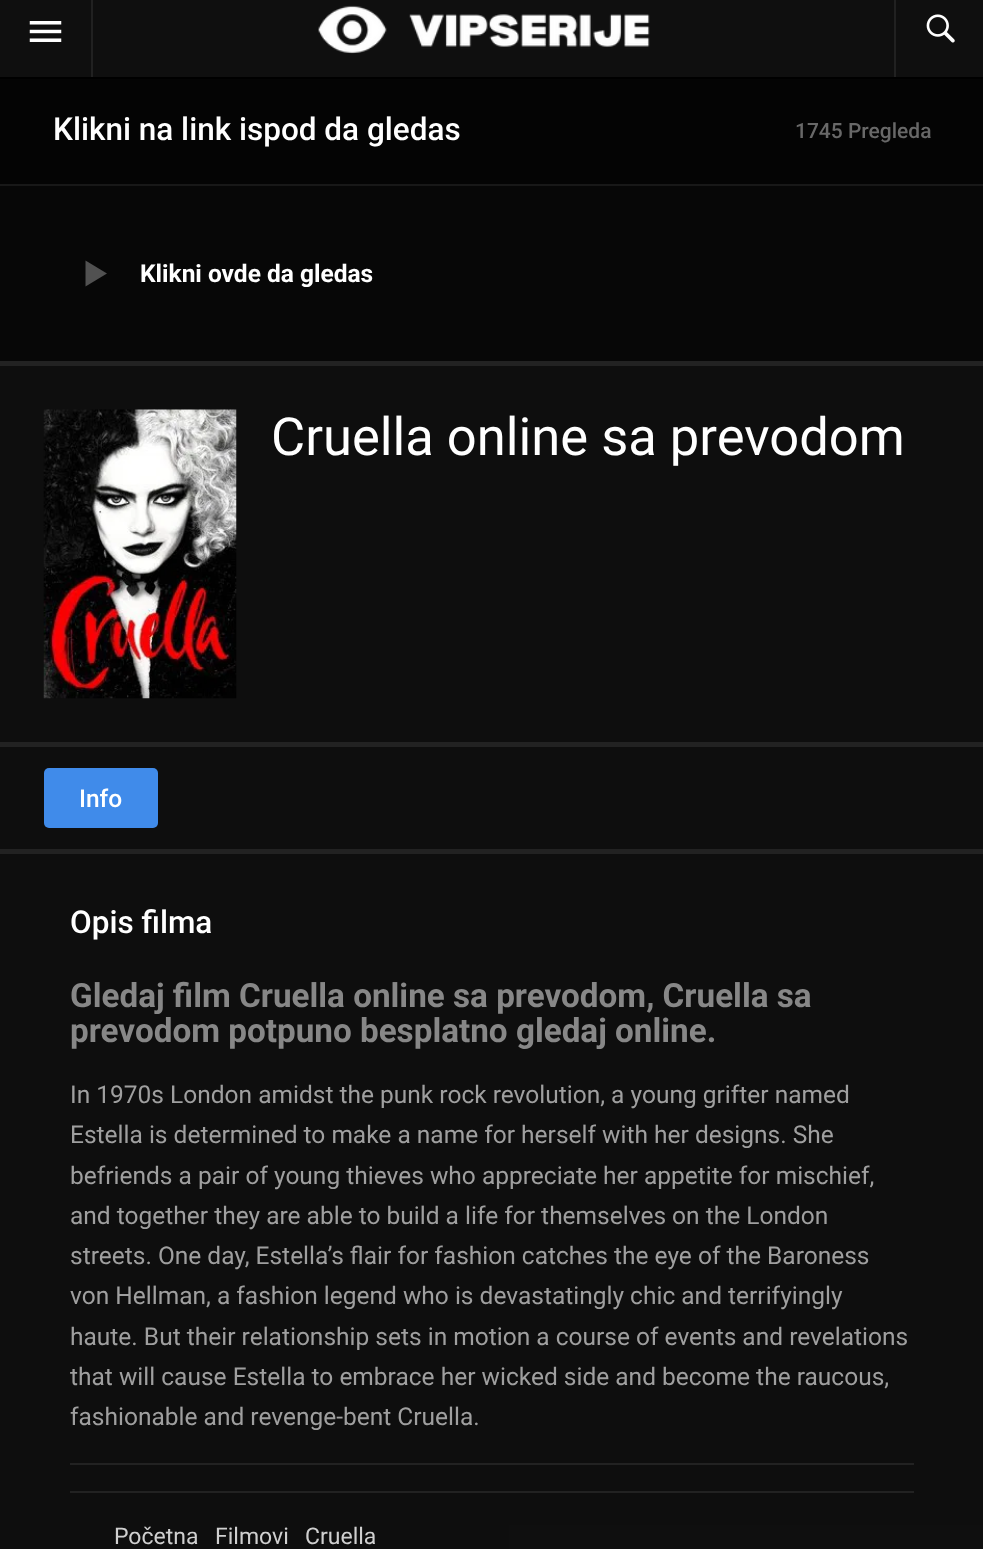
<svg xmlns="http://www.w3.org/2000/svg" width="983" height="1549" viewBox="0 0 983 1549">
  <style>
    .t1 { font: 500 31.5px Roboto; fill: #fff; }
    .t2 { font: 500 21px Roboto; fill: #686868; }
    .t3 { font: bold 24.5px Roboto; fill: #fff; }
    .t4 { font: 52.5px Roboto; fill: #fff; }
    .t5 { font: 500 24.5px Roboto; fill: #fff; }
    .t6 { font: bold 33.25px Roboto; fill: #878787; }
    .t7 { font: 24.5px Roboto; fill: #9f9f9f; }
    .t8 { font: 23px Roboto; fill: #cfcfcf; }
  </style>
  <rect width="100%" height="100%" fill="#0c0c0c"/>
  <rect x="0" y="0" width="983" height="77" fill="#0f0f0f"/>
  <rect x="0" y="77" width="983" height="2" fill="#000"/>
  <rect x="91" y="0" width="2" height="77" fill="#212121"/>
  <image x="29" y="21" width="33" height="21" href="images/1.png"/>
  <image x="318" y="5" width="332" height="49" href="images/2.png"/>
  <rect x="894" y="0" width="2" height="77" fill="#212121"/>
  <image x="926" y="14" width="29" height="29" href="images/3.png"/>
  <rect x="0" y="366" width="983" height="1183" fill="#0f0f0fed"/>
  <rect x="0" y="361" width="983" height="5" fill="#222"/>
  <rect x="0" y="79" width="983" height="105" fill="#040404"/>
  <rect x="0" y="184" width="983" height="2" fill="#181818"/>
  <text x="53" y="140" class="t1">Klikni na link ispod da gledas</text>
  <text x="795" y="138" class="t2">1745 Pregleda</text>
  <rect x="0" y="186" width="983" height="175" fill="#070707"/>
  <path d="M85.5 260.5L107 273.5L85.5 286.5Z" fill="#515151"/>
  <text x="140" y="282" class="t3">Klikni ovde da gledas</text>
  <rect x="0" y="742" width="983" height="5" fill="#222"/>
  <image x="43" y="409" width="194" height="290" href="images/4.png"/>
  <text x="271" y="455" class="t4">Cruella online sa prevodom</text>
  <rect x="0" y="849" width="983" height="5" fill="#222"/>
  <rect x="44" y="768" width="114" height="60" rx="5" fill="#408bea"/>
  <text x="79" y="807" class="t5">Info</text>
  <text x="70" y="933" class="t1">Opis filma</text>
  <rect x="70" y="1463" width="844" height="2" fill="#222"/>
  <text x="70" y="1007" class="t6">Gledaj film Cruella online sa prevodom, Cruella sa</text>
  <text x="70" y="1042" class="t6">prevodom potpuno besplatno gledaj online.</text>
  <text x="70" y="1103" class="t7">In 1970s London amidst the punk rock revolution, a young grifter named</text>
  <text x="70" y="1143" class="t7">Estella is determined to make a name for herself with her designs. She</text>
  <text x="70" y="1184" class="t7">befriends a pair of young thieves who appreciate her appetite for mischief,</text>
  <text x="70" y="1224" class="t7">and together they are able to build a life for themselves on the London</text>
  <text x="70" y="1264" class="t7">streets. One day, Estella’s flair for fashion catches the eye of the Baroness</text>
  <text x="70" y="1304" class="t7">von Hellman, a fashion legend who is devastatingly chic and terrifyingly</text>
  <text x="70" y="1345" class="t7">haute. But their relationship sets in motion a course of events and revelations</text>
  <text x="70" y="1385" class="t7">that will cause Estella to embrace her wicked side and become the raucous,</text>
  <text x="70" y="1425" class="t7">fashionable and revenge-bent Cruella.</text>
  <rect x="70" y="1491" width="844" height="2" fill="#222"/>
  <text x="114" y="1544" class="t8">Početna</text>
  <text x="215" y="1544" class="t8">Filmovi</text>
  <text x="305" y="1544" class="t8">Cruella</text>
</svg>
